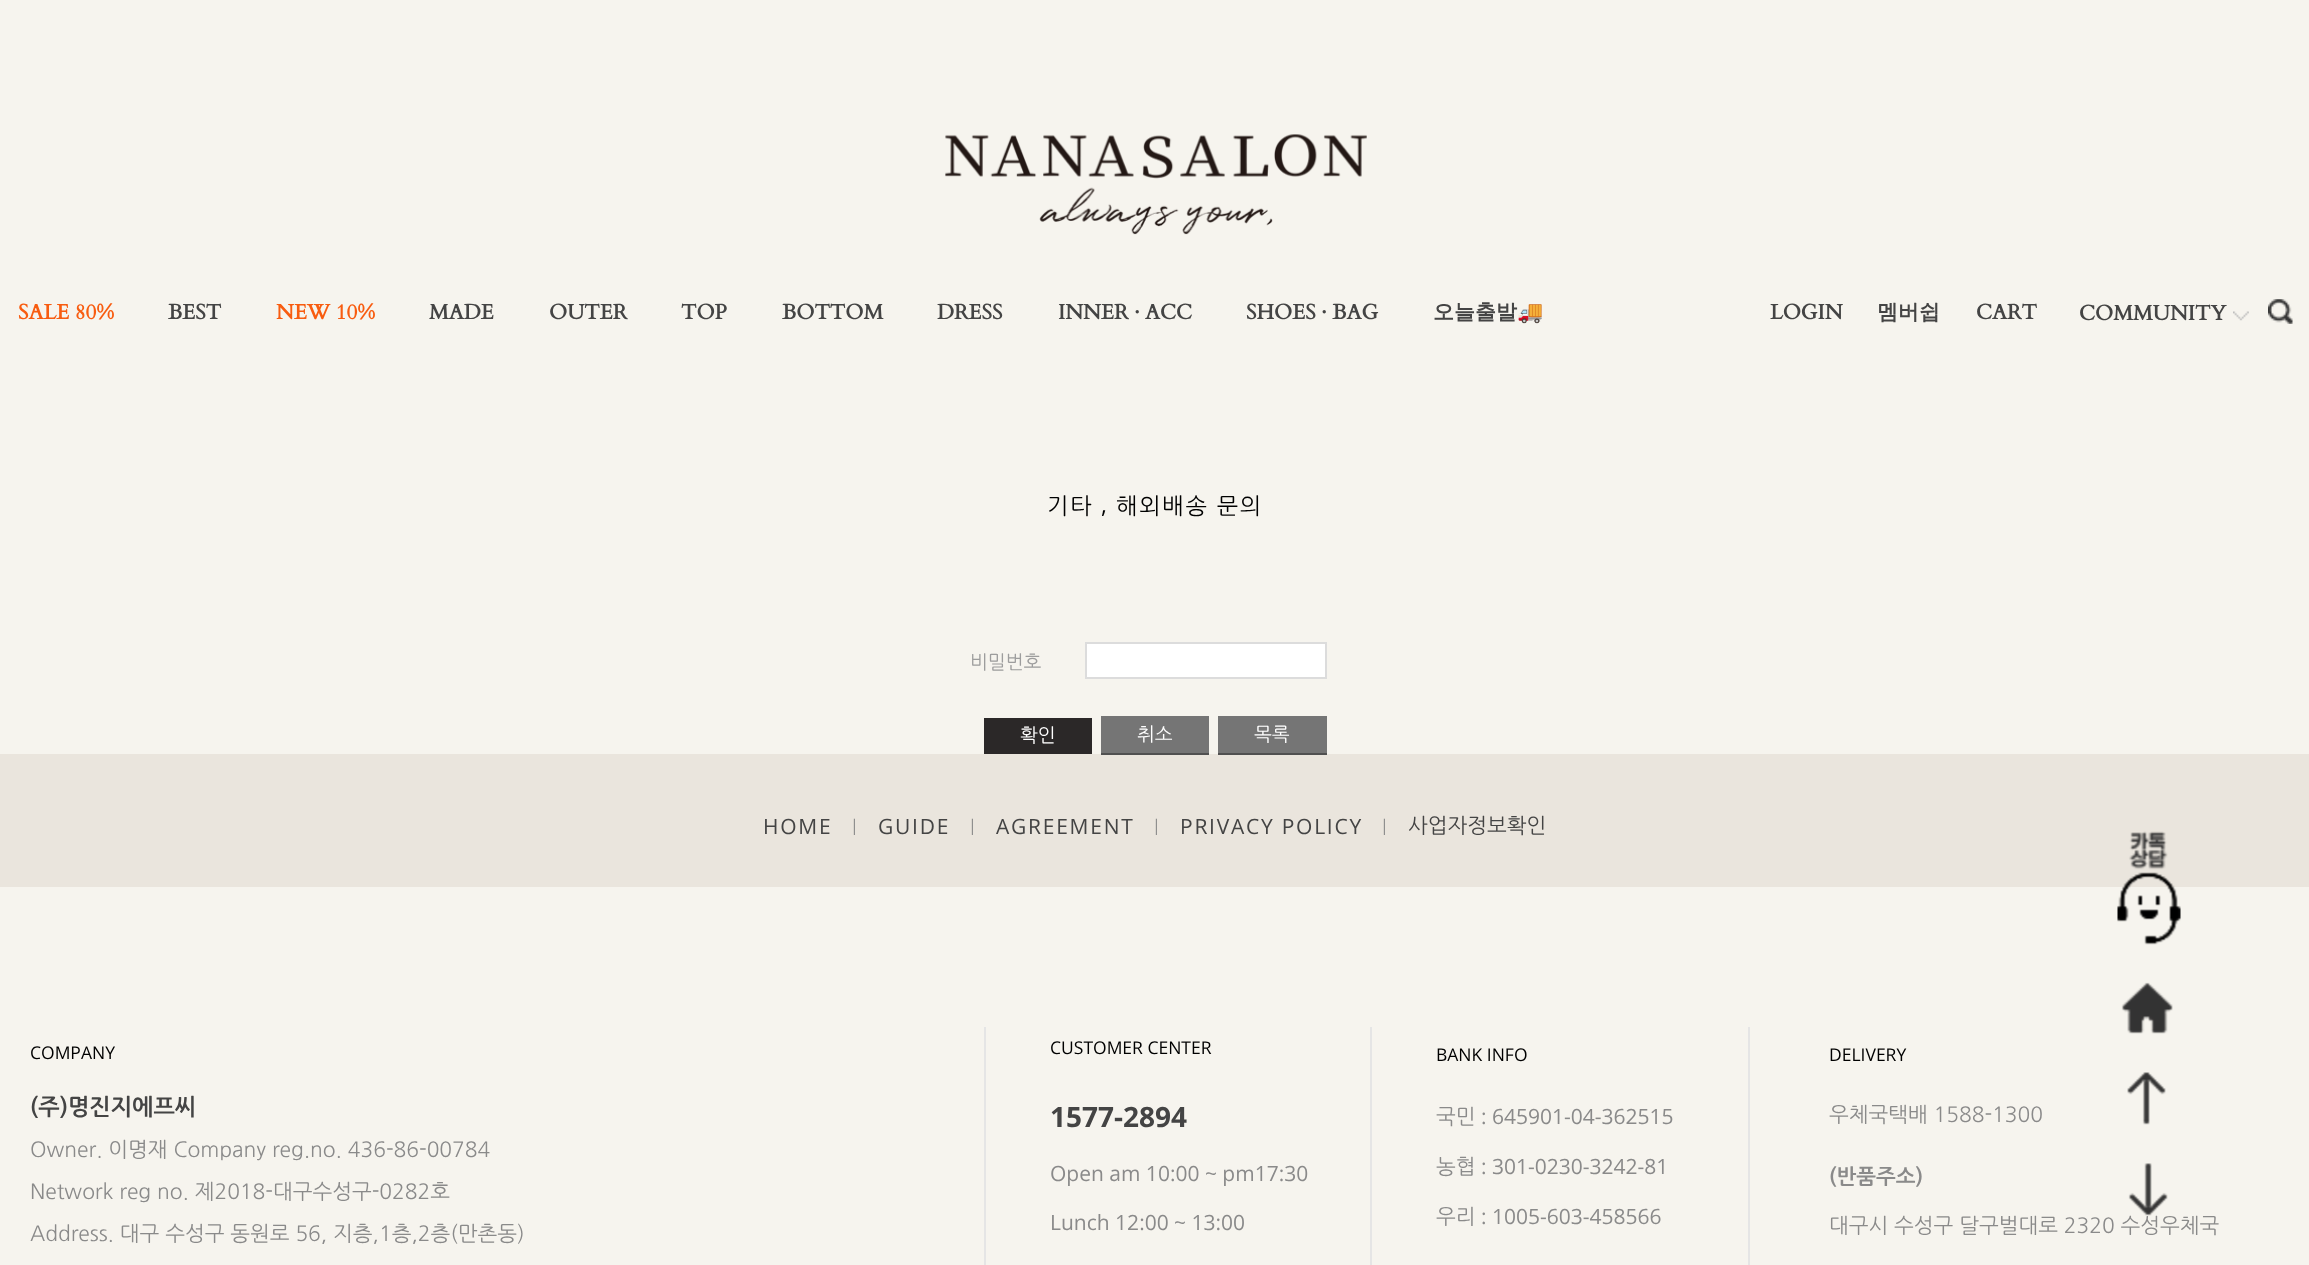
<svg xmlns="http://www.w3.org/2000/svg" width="2309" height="1265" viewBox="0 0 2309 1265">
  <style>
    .t1 { font: bold 21px Cardo; fill: #f85c10; }
    .t2 { font: bold 21px Cardo; fill: #444; }
    .t3 { font: bold 21px WenQuanYi Zen Hei; fill: #444; }
    .t4 { font: bold 21px Noto Color Emoji; fill: #444; }
    .t5 { font: 22.75px 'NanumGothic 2'; letter-spacing: 1.75px; fill: #000; }
    .t6 { font: 22.75px Open Sans; letter-spacing: 1.75px; fill: #000; }
    .t7 { font: 19px 'NanumGothic 2'; fill: #9d9d9d; }
    .t8 { font: 19px NanumGothic; fill: #fff; }
    .t9 { font: 21px Open Sans; letter-spacing: 1.75px; fill: #444; }
    .t10 { font: 16px Open Sans; letter-spacing: 1.75px; fill: #8a8a8a; }
    .t11 { font: 21px NanumGothic; fill: #444; }
    .t12 { font: 21px NanumGothic; fill: #8a8a8a; }
    .t13 { font: 17.5px Open Sans; fill: #000; }
    .t14 { font: bold 22.75px NanumGothic; fill: #444; }
    .t15 { font: bold 28px Open Sans; fill: #444; }
    .t16 { font: 21px Open Sans; fill: #8a8a8a; }
    .t17 { font: bold 21px NanumGothic; fill: #8a8a8a; }
  </style>
  <rect width="100%" height="100%" fill="#f6f4ee"/>
  <image x="945" y="134" width="422" height="101" href="images/1.png"/>
  <text x="18" y="319" class="t1">SALE 80%</text>
  <text x="168" y="319" class="t2">BEST</text>
  <text x="276" y="319" class="t1">NEW 10%</text>
  <text x="429" y="319" class="t2">MADE</text>
  <text x="549" y="319" class="t2">OUTER</text>
  <text x="681" y="319" class="t2">TOP</text>
  <text x="782" y="319" class="t2">BOTTOM</text>
  <text x="937" y="319" class="t2">DRESS</text>
  <text x="1058" y="319" class="t2">INNER · ACC</text>
  <text x="1246" y="319" class="t2">SHOES · BAG</text>
  <text x="1433" y="319" class="t3">오늘출발</text>
  <text x="1517" y="319" class="t4">🚚</text>
  <text x="1770" y="319" class="t2">LOGIN</text>
  <text x="1877" y="319" class="t3">멤버쉽</text>
  <text x="1976" y="319" class="t2">CART</text>
  <image x="2233" y="311" width="16" height="10" href="images/2.png"/>
  <text x="2079" y="320" class="t2">COMMUNITY</text>
  <image x="2268" y="299" width="25" height="25" href="images/3.png"/>
  <text x="1047" y="513" class="t5">기타</text>
  <text x="1101" y="513" class="t6">,</text>
  <text x="1116" y="513" class="t5">해외배송 문의</text>
  <text x="970" y="668" class="t7">비밀번호</text>
  <rect x="1086" y="643" width="240" height="35" fill="#fff" stroke="#dcdcdc" stroke-width="2"/>
  <rect x="984" y="718" width="108" height="36" fill="#2b2828"/>
  <text x="1020" y="742" class="t8">확인</text>
  <rect x="1101" y="716" width="108" height="37" fill="#757575"/>
  <rect x="0" y="754" width="2309" height="133" fill="#eae5dd"/>
  <rect x="1101" y="753" width="108" height="2" fill="#505050"/>
  <text x="1137" y="741" class="t8">취소</text>
  <rect x="1218" y="716" width="109" height="37" fill="#757575"/>
  <rect x="1218" y="753" width="109" height="2" fill="#505050"/>
  <text x="1254" y="741" class="t8">목록</text>
  <text x="763" y="834" class="t9">HOME</text>
  <text x="850" y="831" class="t10">|</text>
  <text x="878" y="834" class="t9">GUIDE</text>
  <text x="968" y="831" class="t10">|</text>
  <text x="996" y="834" class="t9">AGREEMENT</text>
  <text x="1152" y="831" class="t10">|</text>
  <text x="1180" y="834" class="t9">PRIVACY POLICY</text>
  <text x="1380" y="831" class="t10">|</text>
  <text x="1408" y="833" class="t11">사업자정보확인</text>
  <image x="2117" y="831" width="64" height="114" href="images/4.png"/>
  <image x="2121" y="982" width="52" height="52" href="images/5.png"/>
  <image x="2127" y="1072" width="39" height="53" href="images/6.png"/>
  <text x="1829" y="1233" class="t12">대구시 수성구 달구벌대로 2320 수성우체국</text>
  <image x="2128" y="1163" width="40" height="53" href="images/7.png"/>
  <rect x="984" y="1027" width="2" height="238" fill="#e5e5e5"/>
  <text x="30" y="1059" class="t13">COMPANY</text>
  <text x="30" y="1115" class="t14">(주)명진지에프씨</text>
  <text x="30" y="1157" class="t12">Owner. 이명재 Company reg.no. 436-86-00784</text>
  <text x="30" y="1199" class="t12">Network reg no. 제2018-대구수성구-0282호</text>
  <text x="30" y="1241" class="t12">Address. 대구 수성구 동원로 56, 지층,1층,2층(만촌동)</text>
  <rect x="1370" y="1027" width="2" height="238" fill="#e5e5e5"/>
  <text x="1050" y="1054" class="t13">CUSTOMER CENTER</text>
  <text x="1050" y="1127" class="t15">1577-2894</text>
  <text x="1050" y="1181" class="t16">Open am 10:00 ~ pm17:30</text>
  <text x="1050" y="1230" class="t16">Lunch 12:00 ~ 13:00</text>
  <rect x="1748" y="1027" width="2" height="238" fill="#e5e5e5"/>
  <text x="1436" y="1061" class="t13">BANK INFO</text>
  <text x="1436" y="1124" class="t12">국민</text>
  <text x="1481" y="1124" class="t16">: 645901-04-362515</text>
  <text x="1436" y="1174" class="t12">농협</text>
  <text x="1481" y="1174" class="t16">: 301-0230-3242-81</text>
  <text x="1436" y="1224" class="t12">우리</text>
  <text x="1481" y="1224" class="t16">: 1005-603-458566</text>
  <text x="1829" y="1061" class="t13">DELIVERY</text>
  <text x="1829" y="1122" class="t12">우체국택배 1588-1300</text>
  <text x="1829" y="1184" class="t17">(반품주소)</text>
</svg>
